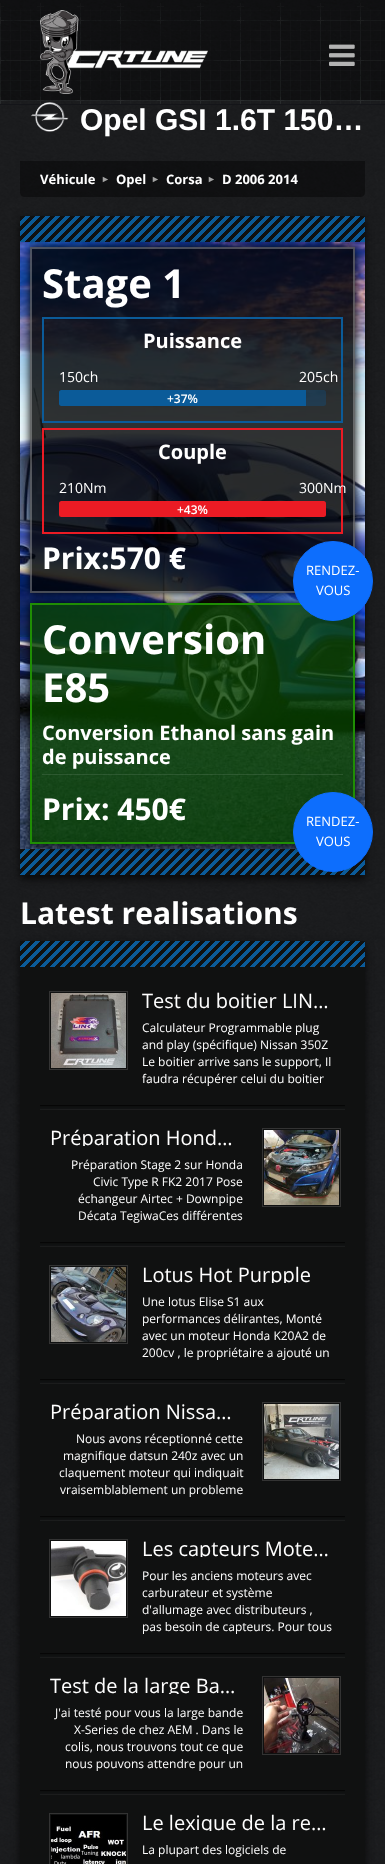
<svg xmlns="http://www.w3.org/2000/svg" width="385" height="1864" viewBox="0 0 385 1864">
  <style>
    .t1 { font: bold 30px Liberation Sans; fill: #fff; }
    .t2 { font: bold 13px Open Sans; fill: #fff; }
    .t3 { font: 9px Liberation Sans; fill: #a2a2a2; }
    .t4 { font: bold 40px Open Sans; fill: #fff; }
    .t5 { font: bold 20px Open Sans; fill: #fff; }
    .t6 { font: 14px Open Sans; fill: #fff; }
    .t7 { font: 600 12px Open Sans; fill: #fff; }
    .t8 { font: bold 30px Open Sans; fill: #fff; }
    .t9 { font: 13px Open Sans; fill: #fff; }
    .t10 { font: 20px Open Sans; fill: #fff; }
    .t11 { font: 12px Open Sans; fill: #fff; }
  </style>
  <defs>
    <clipPath id="clip1"><path d="M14 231H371V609H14ZM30 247H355V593H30Z" clip-rule="evenodd"/></clipPath>
    <clipPath id="clip2"><path d="M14 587H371V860H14ZM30 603H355V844H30Z" clip-rule="evenodd"/></clipPath>
    <clipPath id="clip3"><rect x="40" y="1124" width="213" height="22"/></clipPath>
    <clipPath id="clip4"><rect x="132" y="1261" width="213" height="22"/></clipPath>
    <clipPath id="clip5"><rect x="40" y="1398" width="213" height="22"/></clipPath>
    <clipPath id="clip6"><rect x="132" y="1535" width="213" height="22"/></clipPath>
    <clipPath id="clip7"><rect x="40" y="1672" width="213" height="22"/></clipPath>
    <clipPath id="clip8"><rect x="132" y="1809" width="213" height="22"/></clipPath>
  </defs>
  <rect width="100%" height="100%" fill="#fff"/>
  <image x="0" y="0" width="385" height="1864" href="images/1.png"/>
  <rect x="0" y="0" width="385" height="100" fill="#00000066"/>
  <image x="0" y="3" width="385" height="101" href="images/2.png"/>
  <rect x="0" y="104" width="385" height="1" fill="#141519"/>
  <image x="40" y="10" width="168" height="84" href="images/3.png"/>
  <image x="329" y="44" width="26" height="22" href="images/4.png"/>
  <image x="31" y="102" width="38" height="30" href="images/5.png"/>
  <text x="80" y="130" class="t1">Opel GSI 1.6T 150…</text>
  <path d="M20 161H365V192C365 195 363 197 360 197H25C22 197 20 195 20 192Z" fill="#00000066"/>
  <text x="40" y="184" class="t2">Véhicule</text>
  <text x="101" y="182" class="t3">►</text>
  <text x="116" y="184" class="t2">Opel</text>
  <text x="151" y="182" class="t3">►</text>
  <text x="166" y="184" class="t2">Corsa</text>
  <text x="207" y="182" class="t3">►</text>
  <text x="222" y="184" class="t2">D 2006 2014</text>
  <rect x="20" y="220" width="345" height="659" fill="#000000b3" filter="blur(4px)"/>
  <rect x="20" y="216" width="345" height="659" fill="#101111"/>
  <image x="20" y="216" width="345" height="26" href="images/6.png"/>
  <image x="20" y="242" width="345" height="607" href="images/7.png"/>
  <g clip-path="url(#clip1)">
    <rect x="30" y="247" width="325" height="346" fill="#000" filter="blur(5px)"/>
  </g>
  <rect x="30" y="247" width="325" height="346" fill="#000000cc"/>
  <rect x="31" y="248" width="323" height="344" fill="none" stroke="#ffffff47" stroke-width="2"/>
  <text x="42" y="298" class="t4">Stage 1</text>
  <rect x="43" y="318" width="299" height="104" fill="none" stroke="#0b5b99" stroke-width="2"/>
  <text x="143" y="348" class="t5">Puissance</text>
  <text x="59" y="382" class="t6">150ch</text>
  <text x="299" y="382" class="t6">205ch</text>
  <rect x="59" y="390" width="267" height="16" rx="2.5" fill="#0b5b994d"/>
  <path d="M61.5 390H306V406H61.5C60 406 59 405 59 403.5V392.5C59 391 60 390 61.5 390Z" fill="#0b5b99"/>
  <text x="167" y="403" class="t7">+37%</text>
  <rect x="43" y="429" width="299" height="104" fill="none" stroke="#eb1b24" stroke-width="2"/>
  <text x="158" y="459" class="t5">Couple</text>
  <text x="59" y="493" class="t6">210Nm</text>
  <text x="299" y="493" class="t6">300Nm</text>
  <rect x="59" y="501" width="267" height="16" rx="2.5" fill="#eb1b24"/>
  <text x="177" y="514" class="t7">+43%</text>
  <text x="42" y="569" class="t8">Prix:570 €</text>
  <image x="20" y="849" width="345" height="26" href="images/6.png"/>
  <g clip-path="url(#clip2)">
    <rect x="30" y="603" width="325" height="241" fill="#000" filter="blur(5px)"/>
  </g>
  <rect x="31" y="604" width="323" height="239" fill="#084100cc" stroke="#1f8e04" stroke-width="2"/>
  <circle cx="333" cy="581" r="39.5" fill="#0d6efd" stroke="#0d6efd"/>
  <text x="306" y="575" class="t9">RENDEZ-</text>
  <text x="316" y="595" class="t9">VOUS</text>
  <text x="42" y="654" class="t4">Conversion</text>
  <text x="42" y="702" class="t4">E85</text>
  <rect x="42" y="774" width="301" height="1" fill="#ffffff1a"/>
  <text x="42" y="740" class="t5">Conversion Ethanol sans gain</text>
  <text x="42" y="764" class="t5">de puissance</text>
  <text x="42" y="820" class="t8">Prix: 450€</text>
  <circle cx="333" cy="832" r="39.5" fill="#0d6efd" stroke="#0d6efd"/>
  <text x="306" y="826" class="t9">RENDEZ-</text>
  <text x="316" y="846" class="t9">VOUS</text>
  <text x="20" y="924" class="t8">Latest realisations</text>
  <rect x="20" y="945" width="345" height="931" fill="#000000b3" filter="blur(4px)"/>
  <rect x="20" y="941" width="345" height="923" fill="#101111"/>
  <image x="20" y="941" width="345" height="26" href="images/6.png"/>
  <image x="51" y="993" width="75" height="75" href="images/8.png"/>
  <rect x="49.5" y="991.5" width="78" height="78" fill="none" stroke="#333"/>
  <text x="142" y="1008" class="t10">Test du boitier LIN…</text>
  <text x="142" y="1032" class="t11">Calculateur Programmable plug</text>
  <text x="142" y="1049" class="t11">and play (spécifique) Nissan 350Z</text>
  <text x="142" y="1066" class="t11">Le boitier arrive sans le support, Il</text>
  <text x="142" y="1083" class="t11">faudra récupérer celui du boitier</text>
  <image x="40" y="1105" width="305" height="5" href="images/9.png"/>
  <g clip-path="url(#clip3)">
    <text x="50" y="1145" class="t10">Préparation Hond…</text>
  </g>
  <text x="71" y="1169" class="t11">Préparation Stage 2 sur Honda</text>
  <text x="93" y="1186" class="t11">Civic Type R FK2 2017 Pose</text>
  <text x="78" y="1203" class="t11">échangeur Airtec + Downpipe</text>
  <text x="78" y="1220" class="t11">Décata TegiwaCes différentes</text>
  <image x="264" y="1130" width="75" height="75" href="images/10.png"/>
  <rect x="262.5" y="1128.5" width="78" height="78" fill="none" stroke="#333"/>
  <image x="40" y="1242" width="305" height="5" href="images/9.png"/>
  <image x="51" y="1267" width="75" height="75" href="images/11.png"/>
  <rect x="49.5" y="1265.5" width="78" height="78" fill="none" stroke="#333"/>
  <g clip-path="url(#clip4)">
    <text x="142" y="1282" class="t10">Lotus Hot Purpple</text>
  </g>
  <text x="142" y="1306" class="t11">Une lotus Elise S1 aux</text>
  <text x="142" y="1323" class="t11">performances délirantes, Monté</text>
  <text x="142" y="1340" class="t11">avec un moteur Honda K20A2 de</text>
  <text x="142" y="1357" class="t11">200cv , le propriétaire a ajouté un</text>
  <image x="40" y="1379" width="305" height="5" href="images/9.png"/>
  <g clip-path="url(#clip5)">
    <text x="50" y="1419" class="t10">Préparation Nissa…</text>
  </g>
  <text x="76" y="1443" class="t11">Nous avons réceptionné cette</text>
  <text x="63" y="1460" class="t11">magnifique datsun 240z avec un</text>
  <text x="59" y="1477" class="t11">claquement moteur qui indiquait</text>
  <text x="60" y="1494" class="t11">vraisemblablement un probleme</text>
  <image x="264" y="1404" width="75" height="75" href="images/12.png"/>
  <rect x="262.5" y="1402.5" width="78" height="78" fill="none" stroke="#333"/>
  <image x="40" y="1516" width="305" height="5" href="images/9.png"/>
  <image x="51" y="1541" width="75" height="75" href="images/13.png"/>
  <rect x="49.5" y="1539.5" width="78" height="78" fill="none" stroke="#333"/>
  <g clip-path="url(#clip6)">
    <text x="142" y="1556" class="t10">Les capteurs Mote…</text>
  </g>
  <text x="142" y="1580" class="t11">Pour les anciens moteurs avec</text>
  <text x="142" y="1597" class="t11">carburateur et système</text>
  <text x="142" y="1614" class="t11">d'allumage avec distributeurs ,</text>
  <text x="142" y="1631" class="t11">pas besoin de capteurs. Pour tous</text>
  <image x="40" y="1653" width="305" height="5" href="images/9.png"/>
  <g clip-path="url(#clip7)">
    <text x="50" y="1693" class="t10">Test de la large Ba…</text>
  </g>
  <text x="55" y="1717" class="t11">J'ai testé pour vous la large bande</text>
  <text x="74" y="1734" class="t11">X-Series de chez AEM . Dans le</text>
  <text x="65" y="1751" class="t11">colis, nous trouvons tout ce que</text>
  <text x="65" y="1768" class="t11">nous pouvons attendre pour un</text>
  <image x="264" y="1678" width="75" height="75" href="images/14.png"/>
  <rect x="262.5" y="1676.5" width="78" height="78" fill="none" stroke="#333"/>
  <image x="40" y="1790" width="305" height="5" href="images/9.png"/>
  <image x="51" y="1815" width="75" height="49" href="images/15.png"/>
  <rect x="49.5" y="1813.5" width="78" height="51" fill="none" stroke="#333"/>
  <g clip-path="url(#clip8)">
    <text x="142" y="1830" class="t10">Le lexique de la re…</text>
  </g>
  <text x="142" y="1854" class="t11">La plupart des logiciels de</text>
</svg>
